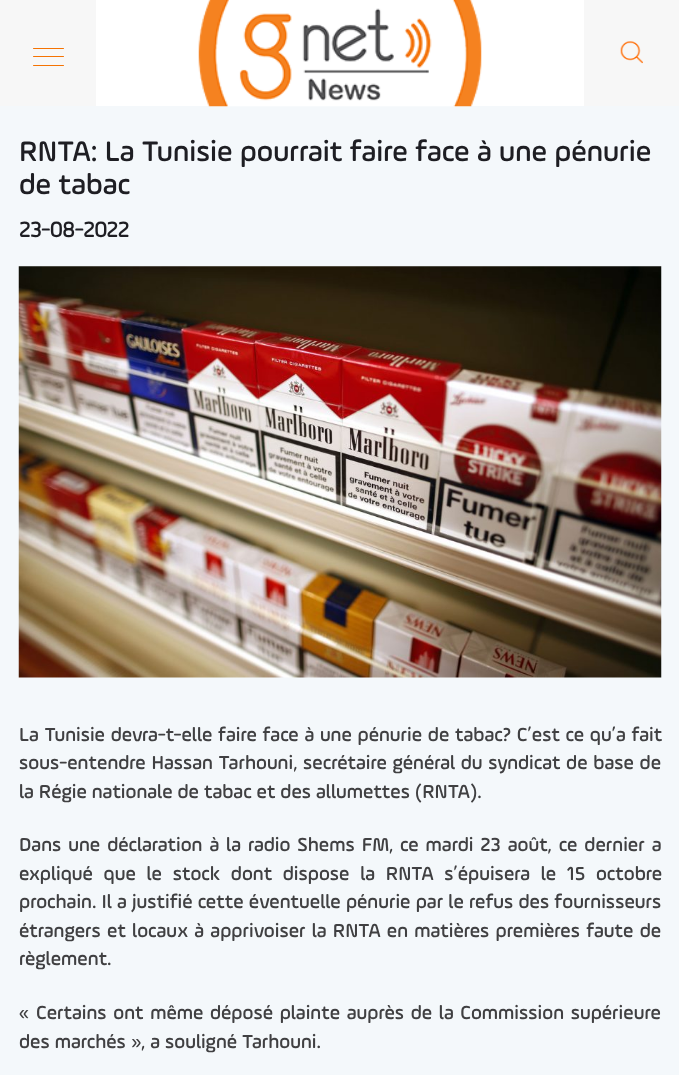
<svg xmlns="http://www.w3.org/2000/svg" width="679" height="1075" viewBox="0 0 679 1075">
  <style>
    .t1 { font: 30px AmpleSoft; fill: #1e1e23; }
    .t2 { font: bold 22.5px AmpleSoft; fill: #1e1e23; }
    .t3 { font: 20px AmpleSoft; fill: #404042; }
  </style>
  <rect width="100%" height="100%" fill="#fff"/>
  <rect x="0" y="0" width="96" height="106" fill="#f7f7f7"/>
  <rect x="33" y="48" width="31" height="1" rx="0.5" fill="#f57303"/>
  <rect x="33" y="56" width="31" height="1" rx="0.5" fill="#f57303"/>
  <rect x="33" y="65" width="31" height="1" rx="0.5" fill="#f57303"/>
  <rect x="0" y="106" width="679" height="969" fill="#f4f8fb"/>
  <image x="198" y="0" width="284" height="107" href="images/1.png"/>
  <rect x="584" y="0" width="95" height="106" fill="#f7f7f7"/>
  <image x="620" y="41" width="23" height="23" href="images/2.png"/>
  <text x="19" y="161" class="t1">RNTA: La Tunisie pourrait faire face à une pénurie</text>
  <text x="19" y="194" class="t1">de tabac</text>
  <text x="19" y="237" class="t2">23-08-2022</text>
  <image x="18" y="266" width="644" height="412" href="images/3.png"/>
  <text x="19" y="741" word-spacing="0.75" class="t3">La Tunisie devra-t-elle faire face à une pénurie de tabac? C’est ce qu’a fait</text>
  <text x="19" y="769" word-spacing="0.75" class="t3">sous-entendre Hassan Tarhouni, secrétaire général du syndicat de base de</text>
  <text x="19" y="798" class="t3">la Régie nationale de tabac et des allumettes (RNTA).</text>
  <text x="19" y="851" word-spacing="2" class="t3">Dans une déclaration à la radio Shems FM, ce mardi 23 août, ce dernier a</text>
  <text x="19" y="880" word-spacing="5.75" class="t3">expliqué que le stock dont dispose la RNTA s’épuisera le 15 octobre</text>
  <text x="19" y="908" word-spacing="0.25" class="t3">prochain. Il a justifié cette éventuelle pénurie par le refus des fournisseurs</text>
  <text x="19" y="937" word-spacing="1.25" class="t3">étrangers et locaux à apprivoiser la RNTA en matières premières faute de</text>
  <text x="19" y="965" class="t3">règlement.</text>
  <text x="19" y="1019" word-spacing="1.75" class="t3">« Certains ont même déposé plainte auprès de la Commission supérieure</text>
  <text x="19" y="1048" class="t3">des marchés », a souligné Tarhouni.</text>
</svg>
